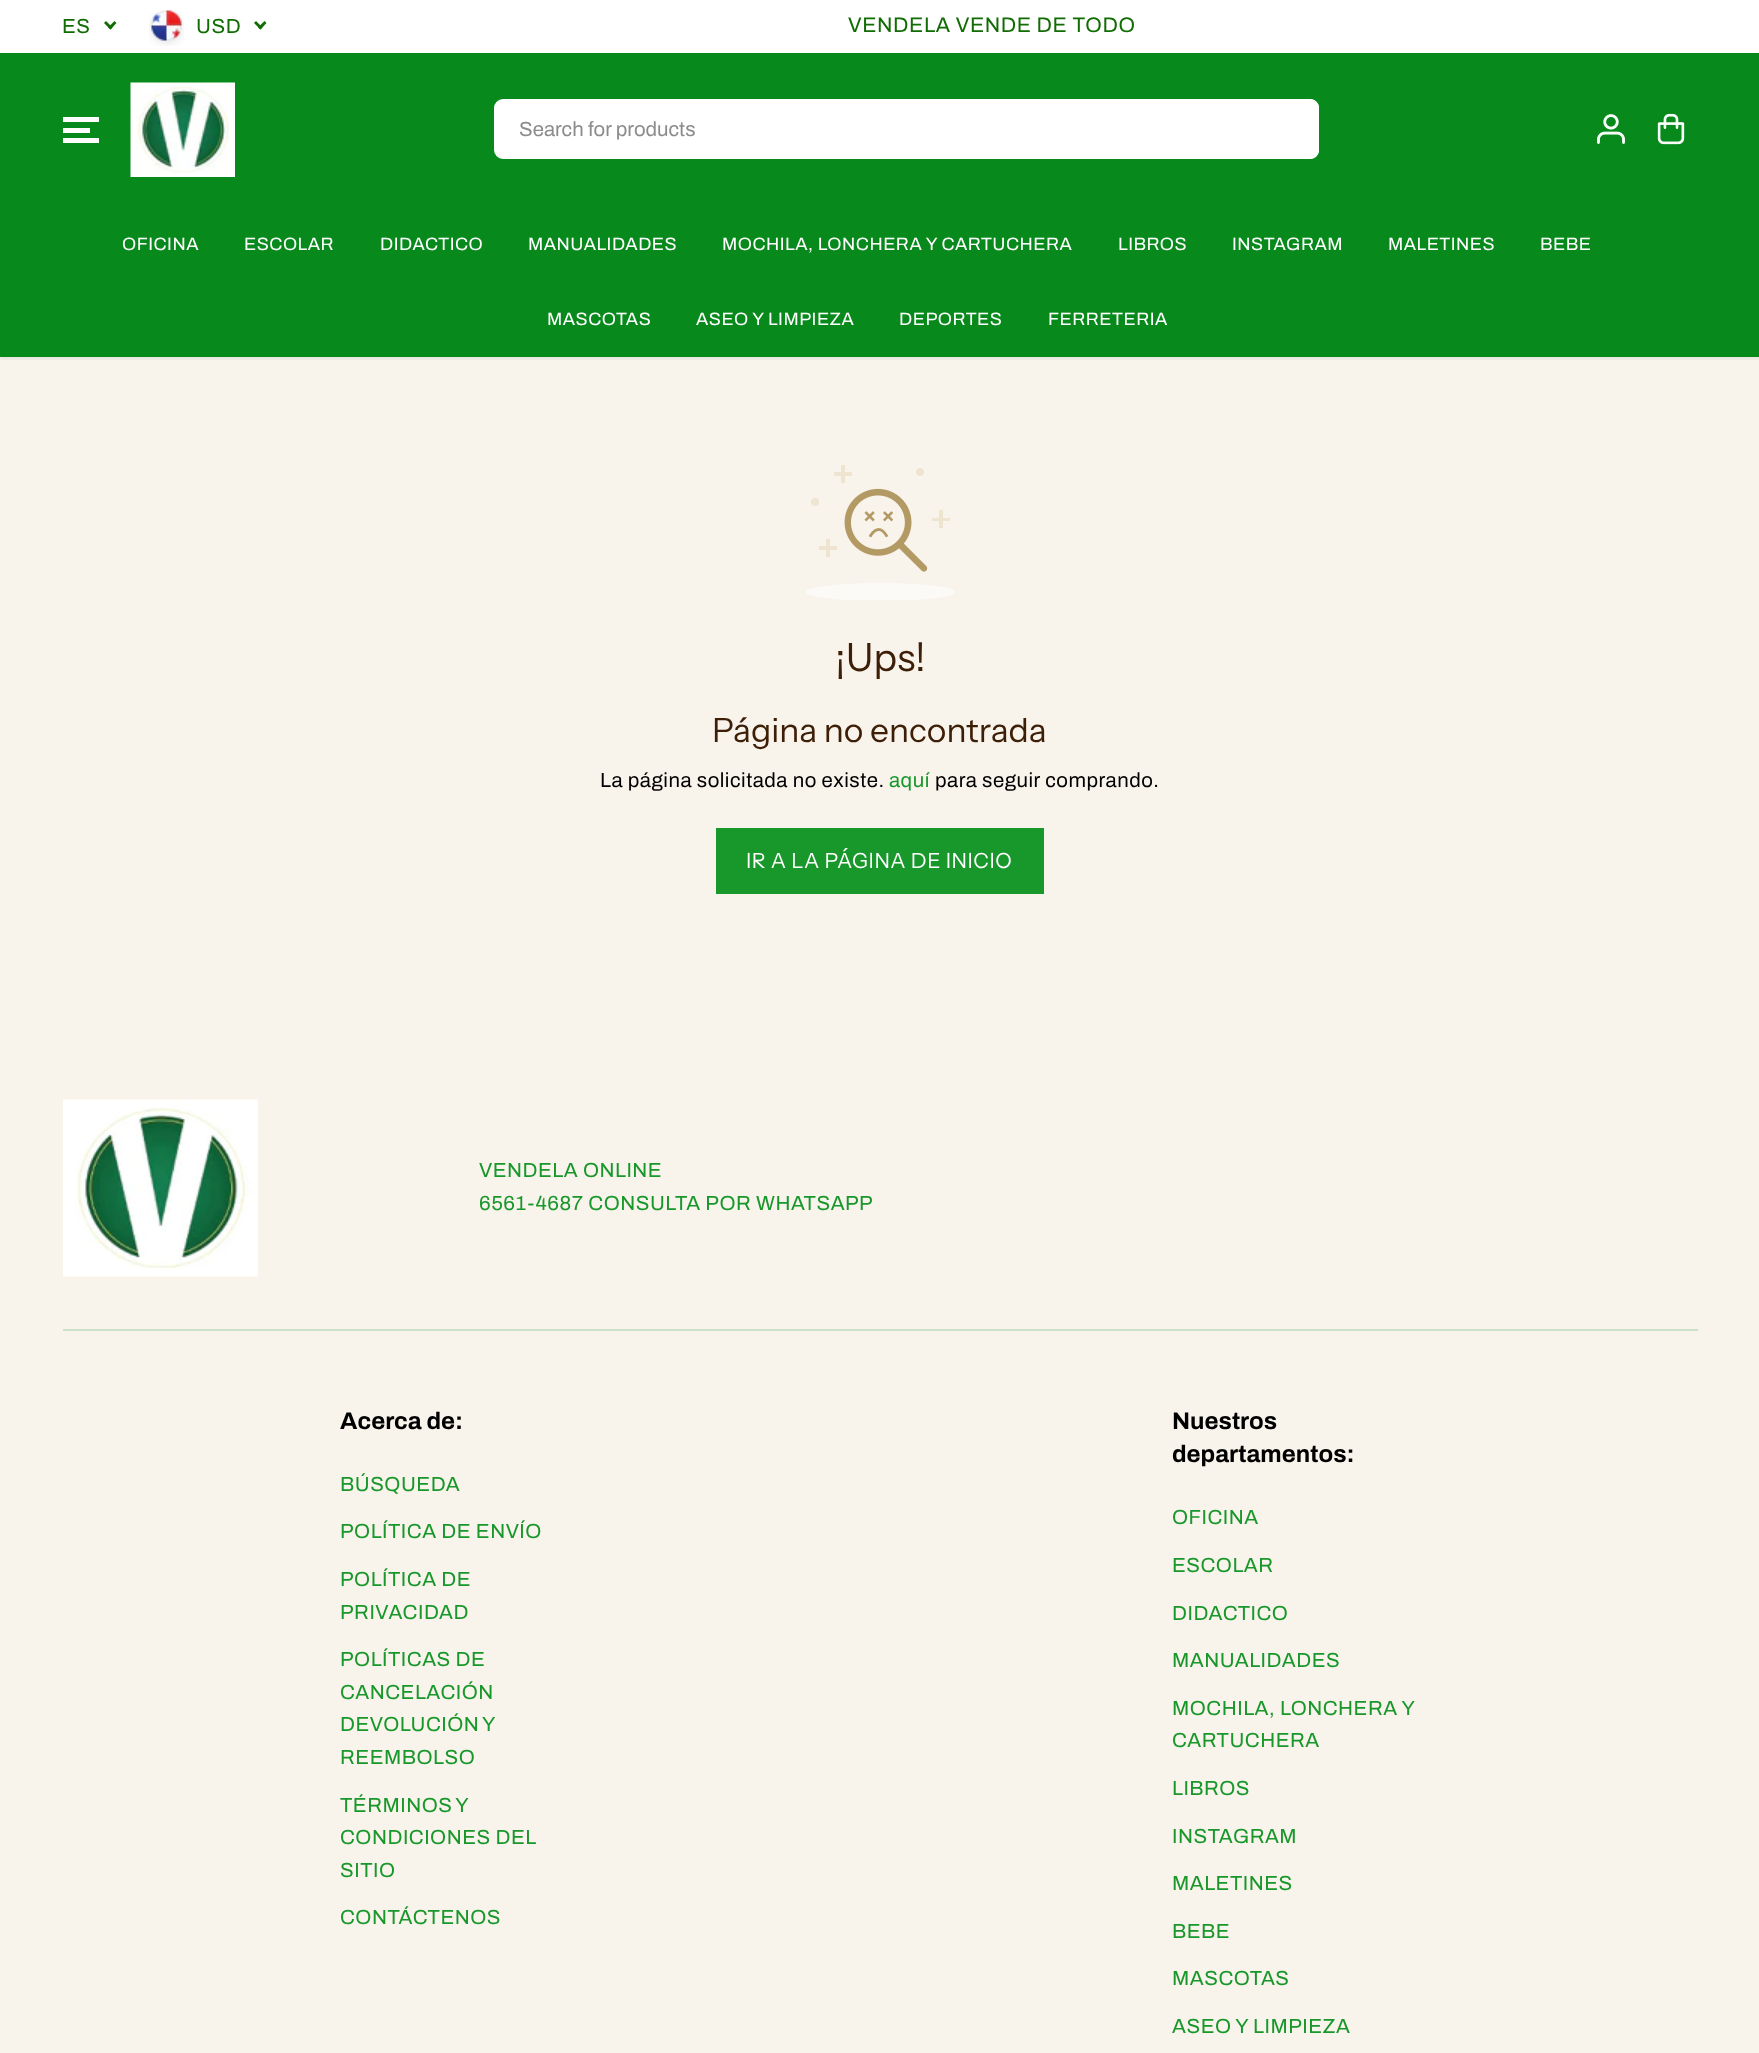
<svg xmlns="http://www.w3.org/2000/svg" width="1759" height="2053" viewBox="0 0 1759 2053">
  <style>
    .t1 { font: 20.4px Archivo; letter-spacing: 0.5px; fill: #116c04; }
    .t2 { font: 21px Archivo; letter-spacing: 0.6px; fill: #116c04; }
    .t3 { font: 20.4px Archivo; fill: #8c8c8c; }
    .t4 { font: 18px Archivo; letter-spacing: 0.5px; fill: #fff; }
    .t5 { font: 39px Instrument Sans; fill: #3d1e06; }
    .t6 { font: 33.5px Instrument Sans; fill: #3d1e06; }
    .t7 { font: 20.4px Archivo; letter-spacing: 0.5px; fill: #000; }
    .t8 { font: 20.4px Archivo; letter-spacing: 0.5px; fill: #18972b; }
    .t9 { font: 21px Instrument Sans; letter-spacing: 0.5px; fill: #fff; }
    .t10 { font: bold 24px Archivo; fill: #000; }
  </style>
  <defs>
    <clipPath id="clip1"><rect x="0" y="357" width="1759" height="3"/></clipPath>
  </defs>
  <rect width="100%" height="100%" fill="#f8f3eb"/>
  <rect x="0" y="53" width="1759" height="304" fill="#078a1b"/>
  <g clip-path="url(#clip1)">
    <rect x="0" y="56" width="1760" height="304" fill="#0000000d" filter="blur(1.5px)"/>
  </g>
  <rect x="0" y="0" width="1759" height="53" fill="#fff"/>
  <text x="62" y="33" class="t1">ES</text>
  <path d="M114.5 21L116.5 23L110.5 29.5L108 27.5Z" fill="#116c04"/>
  <path d="M106 21L112.5 27.5L110.5 29.5L104 23Z" fill="#116c04"/>
  <image x="149" y="10" width="35" height="36" href="images/1.png"/>
  <text x="196" y="33" class="t1">USD</text>
  <path d="M264.5 21L266.5 23L260.5 29.5L258 27.5Z" fill="#116c04"/>
  <path d="M256 21L262.5 27.5L260.5 29.5L254 23Z" fill="#116c04"/>
  <text x="848" y="32" class="t2">VENDELA VENDE DE TODO</text>
  <rect x="63" y="128" width="27" height="5" fill="#fff"/>
  <rect x="63" y="117" width="36" height="5" fill="#fff"/>
  <rect x="63" y="138" width="36" height="5" fill="#fff"/>
  <image x="130" y="82" width="105" height="95" href="images/2.png"/>
  <rect x="495.5" y="100.5" width="822" height="57" rx="7.5" fill="#fff" stroke="#fff" stroke-width="3"/>
  <text x="519" y="136" class="t3">Search for products</text>
  <path d="M1253 99H1310C1315 99 1319 103 1319 108V150C1319 155 1315 159 1310 159H1253Z" fill="#fff"/>
  <image x="1597" y="114" width="28" height="30" href="images/3.png"/>
  <image x="1657" y="113" width="28" height="32" href="images/4.png"/>
  <text x="122" y="250" class="t4">OFICINA</text>
  <text x="244" y="250" class="t4">ESCOLAR</text>
  <text x="380" y="250" class="t4">DIDACTICO</text>
  <text x="528" y="250" class="t4">MANUALIDADES</text>
  <text x="722" y="250" class="t4">MOCHILA, LONCHERA Y CARTUCHERA</text>
  <text x="1118" y="250" class="t4">LIBROS</text>
  <text x="1232" y="250" class="t4">INSTAGRAM</text>
  <text x="1388" y="250" class="t4">MALETINES</text>
  <text x="1540" y="250" class="t4">BEBE</text>
  <text x="547" y="325" class="t4">MASCOTAS</text>
  <text x="696" y="325" class="t4">ASEO Y LIMPIEZA</text>
  <text x="899" y="325" class="t4">DEPORTES</text>
  <text x="1048" y="325" class="t4">FERRETERIA</text>
  <image x="806" y="465" width="149" height="135" href="images/5.png"/>
  <text x="835" y="671" class="t5">¡Ups!</text>
  <text x="712" y="742" class="t6">Página no encontrada</text>
  <text x="600" y="787" class="t7">La página solicitada no existe.</text>
  <text x="889" y="787" class="t8">aquí</text>
  <text x="935" y="787" class="t7">para seguir comprando.</text>
  <rect x="716" y="828" width="328" height="66" fill="#18972b"/>
  <text x="746" y="868" class="t9">IR A LA PÁGINA DE INICIO</text>
  <rect x="63" y="1329" width="1635" height="2" fill="#cbe1c5"/>
  <image x="63" y="1099" width="195" height="178" href="images/6.png"/>
  <text x="479" y="1177" class="t8">VENDELA ONLINE</text>
  <text x="479" y="1210" class="t8">6561-4687 CONSULTA POR WHATSAPP</text>
  <text x="340" y="1429" class="t10">Acerca de:</text>
  <text x="340" y="1491" class="t8">BÚSQUEDA</text>
  <text x="340" y="1538" class="t8">POLÍTICA DE ENVÍO</text>
  <text x="340" y="1586" class="t8">POLÍTICA DE</text>
  <text x="340" y="1619" class="t8">PRIVACIDAD</text>
  <text x="340" y="1666" class="t8">POLÍTICAS DE</text>
  <text x="340" y="1699" class="t8">CANCELACIÓN</text>
  <text x="340" y="1731" word-spacing="-1" class="t8">DEVOLUCIÓN Y</text>
  <text x="340" y="1764" class="t8">REEMBOLSO</text>
  <text x="340" y="1812" word-spacing="-1" class="t8">TÉRMINOS Y</text>
  <text x="340" y="1844" class="t8">CONDICIONES DEL</text>
  <text x="340" y="1877" class="t8">SITIO</text>
  <text x="340" y="1924" class="t8">CONTÁCTENOS</text>
  <text x="1172" y="1429" class="t10">Nuestros</text>
  <text x="1172" y="1462" class="t10">departamentos:</text>
  <text x="1172" y="1524" class="t8">OFICINA</text>
  <text x="1172" y="1572" class="t8">ESCOLAR</text>
  <text x="1172" y="1620" class="t8">DIDACTICO</text>
  <text x="1172" y="1667" class="t8">MANUALIDADES</text>
  <text x="1172" y="1715" class="t8">MOCHILA, LONCHERA Y</text>
  <text x="1172" y="1747" class="t8">CARTUCHERA</text>
  <text x="1172" y="1795" class="t8">LIBROS</text>
  <text x="1172" y="1843" class="t8">INSTAGRAM</text>
  <text x="1172" y="1890" class="t8">MALETINES</text>
  <text x="1172" y="1938" class="t8">BEBE</text>
  <text x="1172" y="1985" class="t8">MASCOTAS</text>
  <text x="1172" y="2033" class="t8">ASEO Y LIMPIEZA</text>
</svg>
